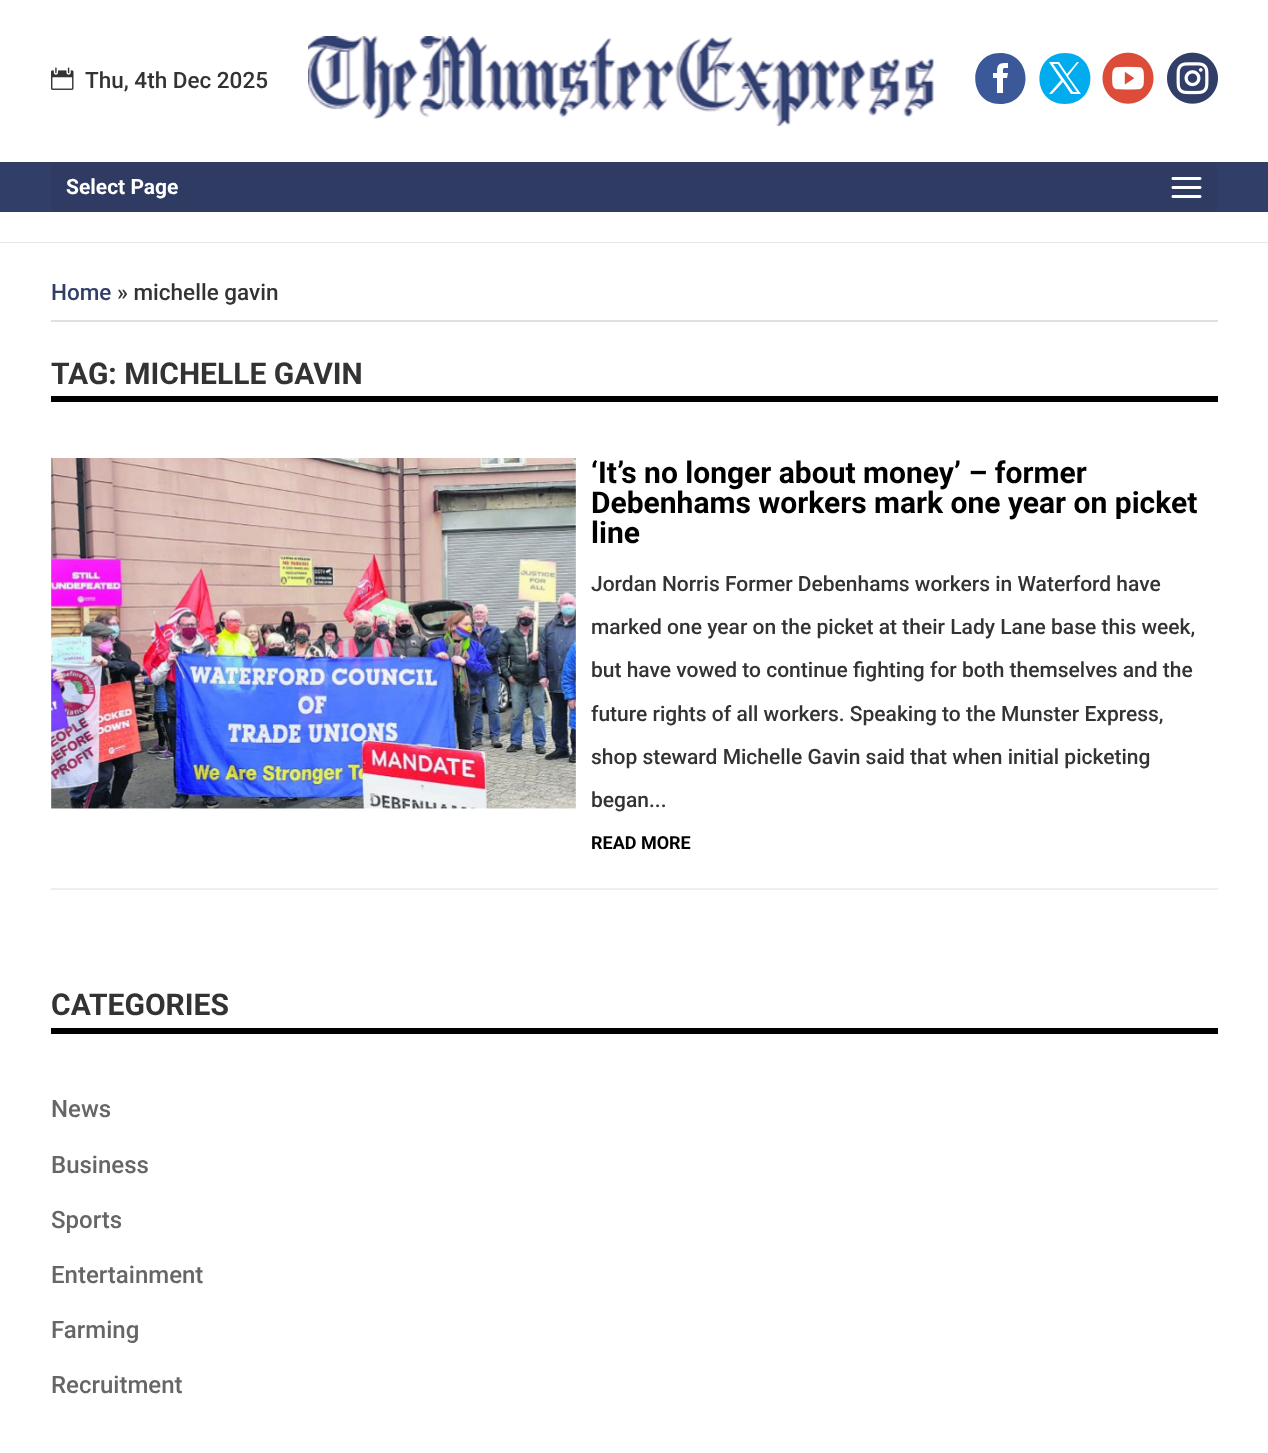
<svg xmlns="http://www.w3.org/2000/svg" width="1268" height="1453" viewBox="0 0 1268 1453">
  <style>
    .t1 { font: 500 22.5px Roboto; fill: #333; }
    .t2 { font: bold 21px Roboto; fill: #fff; }
    .t3 { font: 500 22.5px Roboto; fill: #313e67; }
    .t4 { font: bold 30px Roboto; fill: #333; }
    .t5 { font: bold 30px Roboto; fill: #000; }
    .t6 { font: 500 21px Roboto; fill: #333; }
    .t7 { font: bold 18px Roboto; fill: #000; }
    .t8 { font: 500 24px Roboto; fill: #666; }
  </style>
  <rect width="100%" height="100%" fill="#fff"/>
  <rect x="0" y="242" width="1268" height="1" fill="#e6e6e6"/>
  <image x="51" y="67" width="23" height="23" href="images/1.png"/>
  <text x="85" y="88" class="t1">Thu, 4th Dec 2025</text>
  <image x="308" y="36" width="626" height="90" href="images/2.png"/>
  <path d="M1000 53C967 53 967 104 1000 104C1034 104 1034 53 1000 53ZM1007 78H1003V93H997V78H993V73H997C997 64 998 63 1008 63V68C1002 68 1003 68 1003 73H1008Z" fill="#3b5998"/>
  <path d="M1065 53C1031 53 1031 104 1065 104C1099 104 1099 53 1065 53ZM1071 94L1063 82L1052 94H1049L1061 80L1049 62H1059L1067 74L1077 62H1079L1068 76L1081 94ZM1053 64L1073 92H1077L1058 64Z" fill="#00aced"/>
  <image x="1102" y="52" width="52" height="52" href="images/3.png"/>
  <image x="1167" y="52" width="51" height="52" href="images/4.png"/>
  <rect x="0" y="162" width="1268" height="50" fill="#313e67"/>
  <rect x="51" y="162" width="1167" height="50" rx="8" fill="#2f3b62"/>
  <text x="66" y="194" class="t2">Select Page</text>
  <image x="1171" y="177" width="31" height="21" href="images/5.png"/>
  <rect x="51" y="320" width="1167" height="2" fill="#e0e0e0"/>
  <text x="51" y="300" class="t3">Home</text>
  <text x="117" y="300" class="t1">» michelle gavin</text>
  <rect x="51" y="396" width="1167" height="6" fill="#000"/>
  <text x="51" y="384" class="t4">TAG: MICHELLE GAVIN</text>
  <rect x="51" y="888" width="1167" height="2" fill="#eee"/>
  <image x="51" y="458" width="525" height="351" href="images/6.png"/>
  <text x="591" y="483" class="t5">‘It’s no longer about money’ – former</text>
  <text x="591" y="513" class="t5">Debenhams workers mark one year on picket</text>
  <text x="591" y="543" class="t5">line</text>
  <text x="591" y="591" class="t6">Jordan Norris Former Debenhams workers in Waterford have</text>
  <text x="591" y="634" class="t6">marked one year on the picket at their Lady Lane base this week,</text>
  <text x="591" y="677" class="t6">but have vowed to continue fighting for both themselves and the</text>
  <text x="591" y="721" class="t6">future rights of all workers. Speaking to the Munster Express,</text>
  <text x="591" y="764" class="t6">shop steward Michelle Gavin said that when initial picketing</text>
  <text x="591" y="807" class="t6">began...</text>
  <text x="591" y="849" class="t7">READ MORE</text>
  <rect x="51" y="1028" width="1167" height="6" fill="#000"/>
  <text x="51" y="1015" class="t4">CATEGORIES</text>
  <text x="51" y="1117" class="t8">News</text>
  <text x="51" y="1173" class="t8">Business</text>
  <text x="51" y="1228" class="t8">Sports</text>
  <text x="51" y="1283" class="t8">Entertainment</text>
  <text x="51" y="1338" class="t8">Farming</text>
  <text x="51" y="1393" class="t8">Recruitment</text>
</svg>
